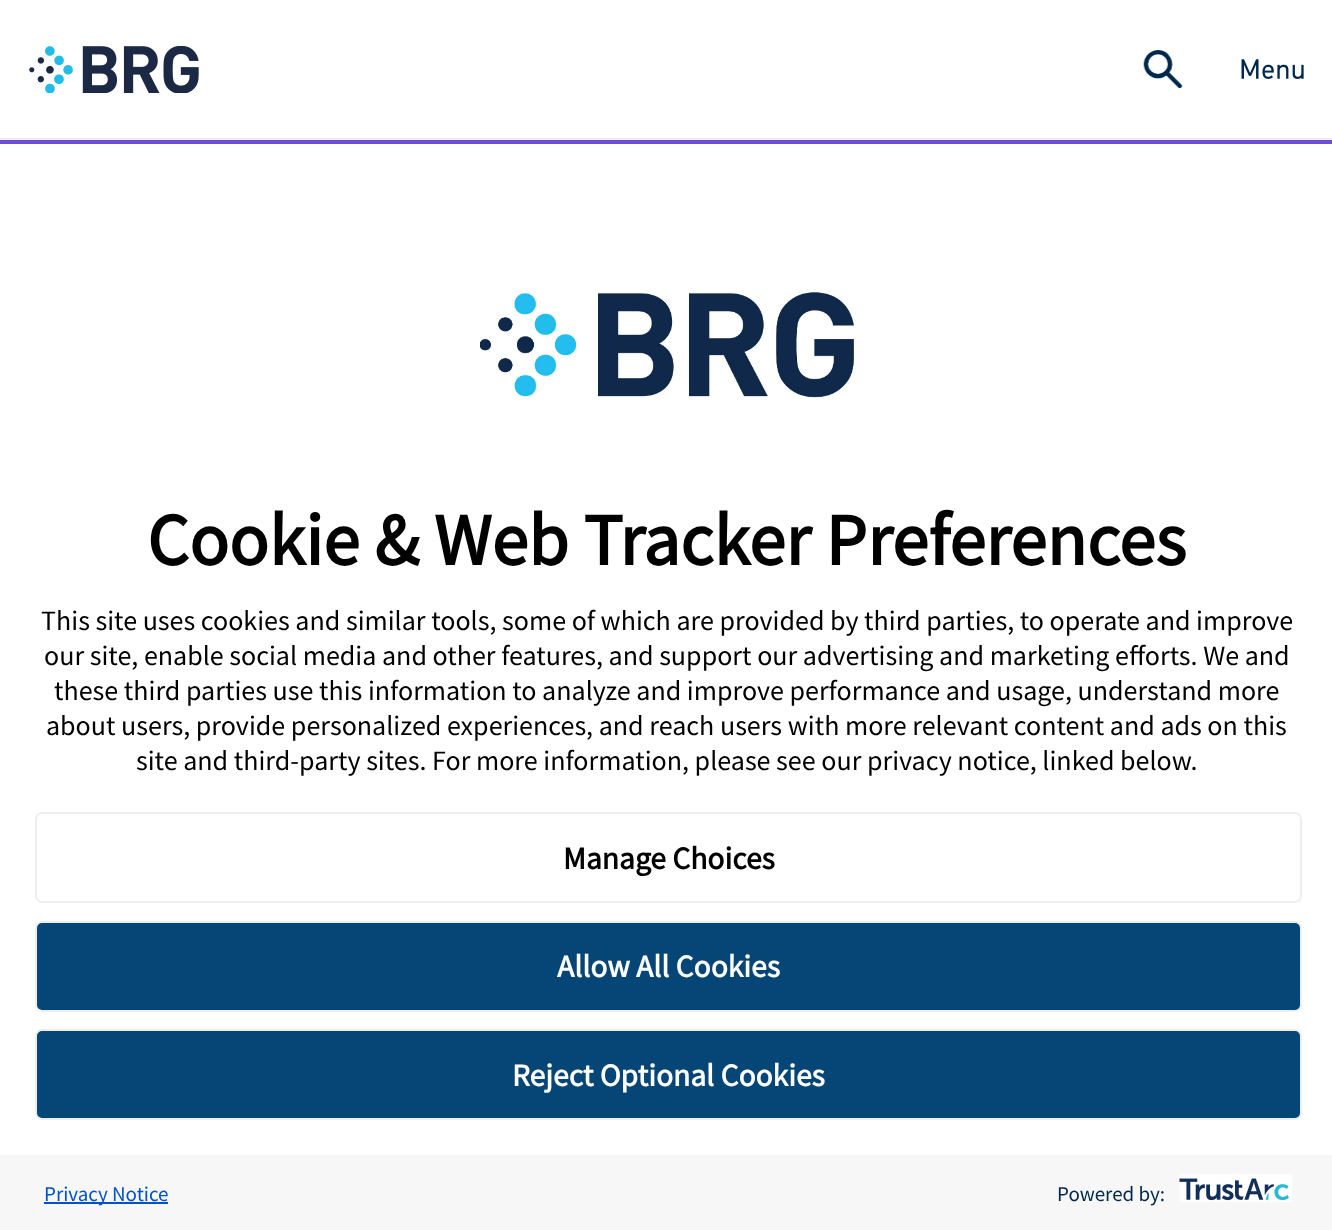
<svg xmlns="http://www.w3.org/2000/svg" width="1332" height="1230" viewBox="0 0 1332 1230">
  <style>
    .t1 { font: bold 73.5px Source Sans Pro; fill: #000; }
    .t2 { font: 28px Source Sans Pro; fill: #000; }
    .t3 { font: bold 31.5px Source Sans Pro; fill: #000; }
    .t4 { font: bold 31.5px Source Sans Pro; fill: #fff; }
    .t5 { font: 21px Source Sans Pro; fill: #0052cc; }
    .t6 { font: 21px Source Sans Pro; fill: #00274c; }
  </style>
  <rect width="100%" height="100%" fill="#fff"/>
  <rect x="0" y="138" width="1332" height="2" fill="#eee"/>
  <image x="29" y="46" width="170" height="47" href="images/1.png"/>
  <image x="1143" y="50" width="40" height="39" href="images/2.png"/>
  <image x="1241" y="59" width="63" height="20" href="images/3.png"/>
  <rect x="0" y="140" width="1332" height="4" fill="#704bd4"/>
  <image x="480" y="292" width="374" height="106" href="images/4.png"/>
  <text x="147" y="565" class="t1">Cookie &amp; Web Tracker Preferences</text>
  <text x="41" y="630" class="t2">This site uses cookies and similar tools, some of which are provided by third parties, to operate and improve</text>
  <text x="44" y="665" class="t2">our site, enable social media and other features, and support our advertising and marketing efforts. We and</text>
  <text x="54" y="700" class="t2">these third parties use this information to analyze and improve performance and usage, understand more</text>
  <text x="46" y="735" class="t2">about users, provide personalized experiences, and reach users with more relevant content and ads on this</text>
  <text x="136" y="770" class="t2">site and third-party sites. For more information, please see our privacy notice, linked below.</text>
  <rect x="36" y="813" width="1265" height="89" rx="6" fill="none" stroke="#eee" stroke-width="2"/>
  <text x="563" y="869" class="t3">Manage Choices</text>
  <rect x="36" y="922" width="1265" height="89" rx="6" fill="#064676" stroke="#eee" stroke-width="2"/>
  <text x="557" y="977" class="t4">Allow All Cookies</text>
  <rect x="36" y="1030" width="1265" height="89" rx="6" fill="#064676" stroke="#eee" stroke-width="2"/>
  <text x="512" y="1086" class="t4">Reject Optional Cookies</text>
  <rect x="0" y="1155" width="1332" height="75" fill="#f7f7f7"/>
  <rect x="44" y="1202" width="124" height="2" fill="#0052cc"/>
  <text x="44" y="1201" class="t5">Privacy Notice</text>
  <text x="1057" y="1201" class="t6">Powered by:</text>
  <image x="1179" y="1174" width="113" height="28" href="images/5.png"/>
</svg>
